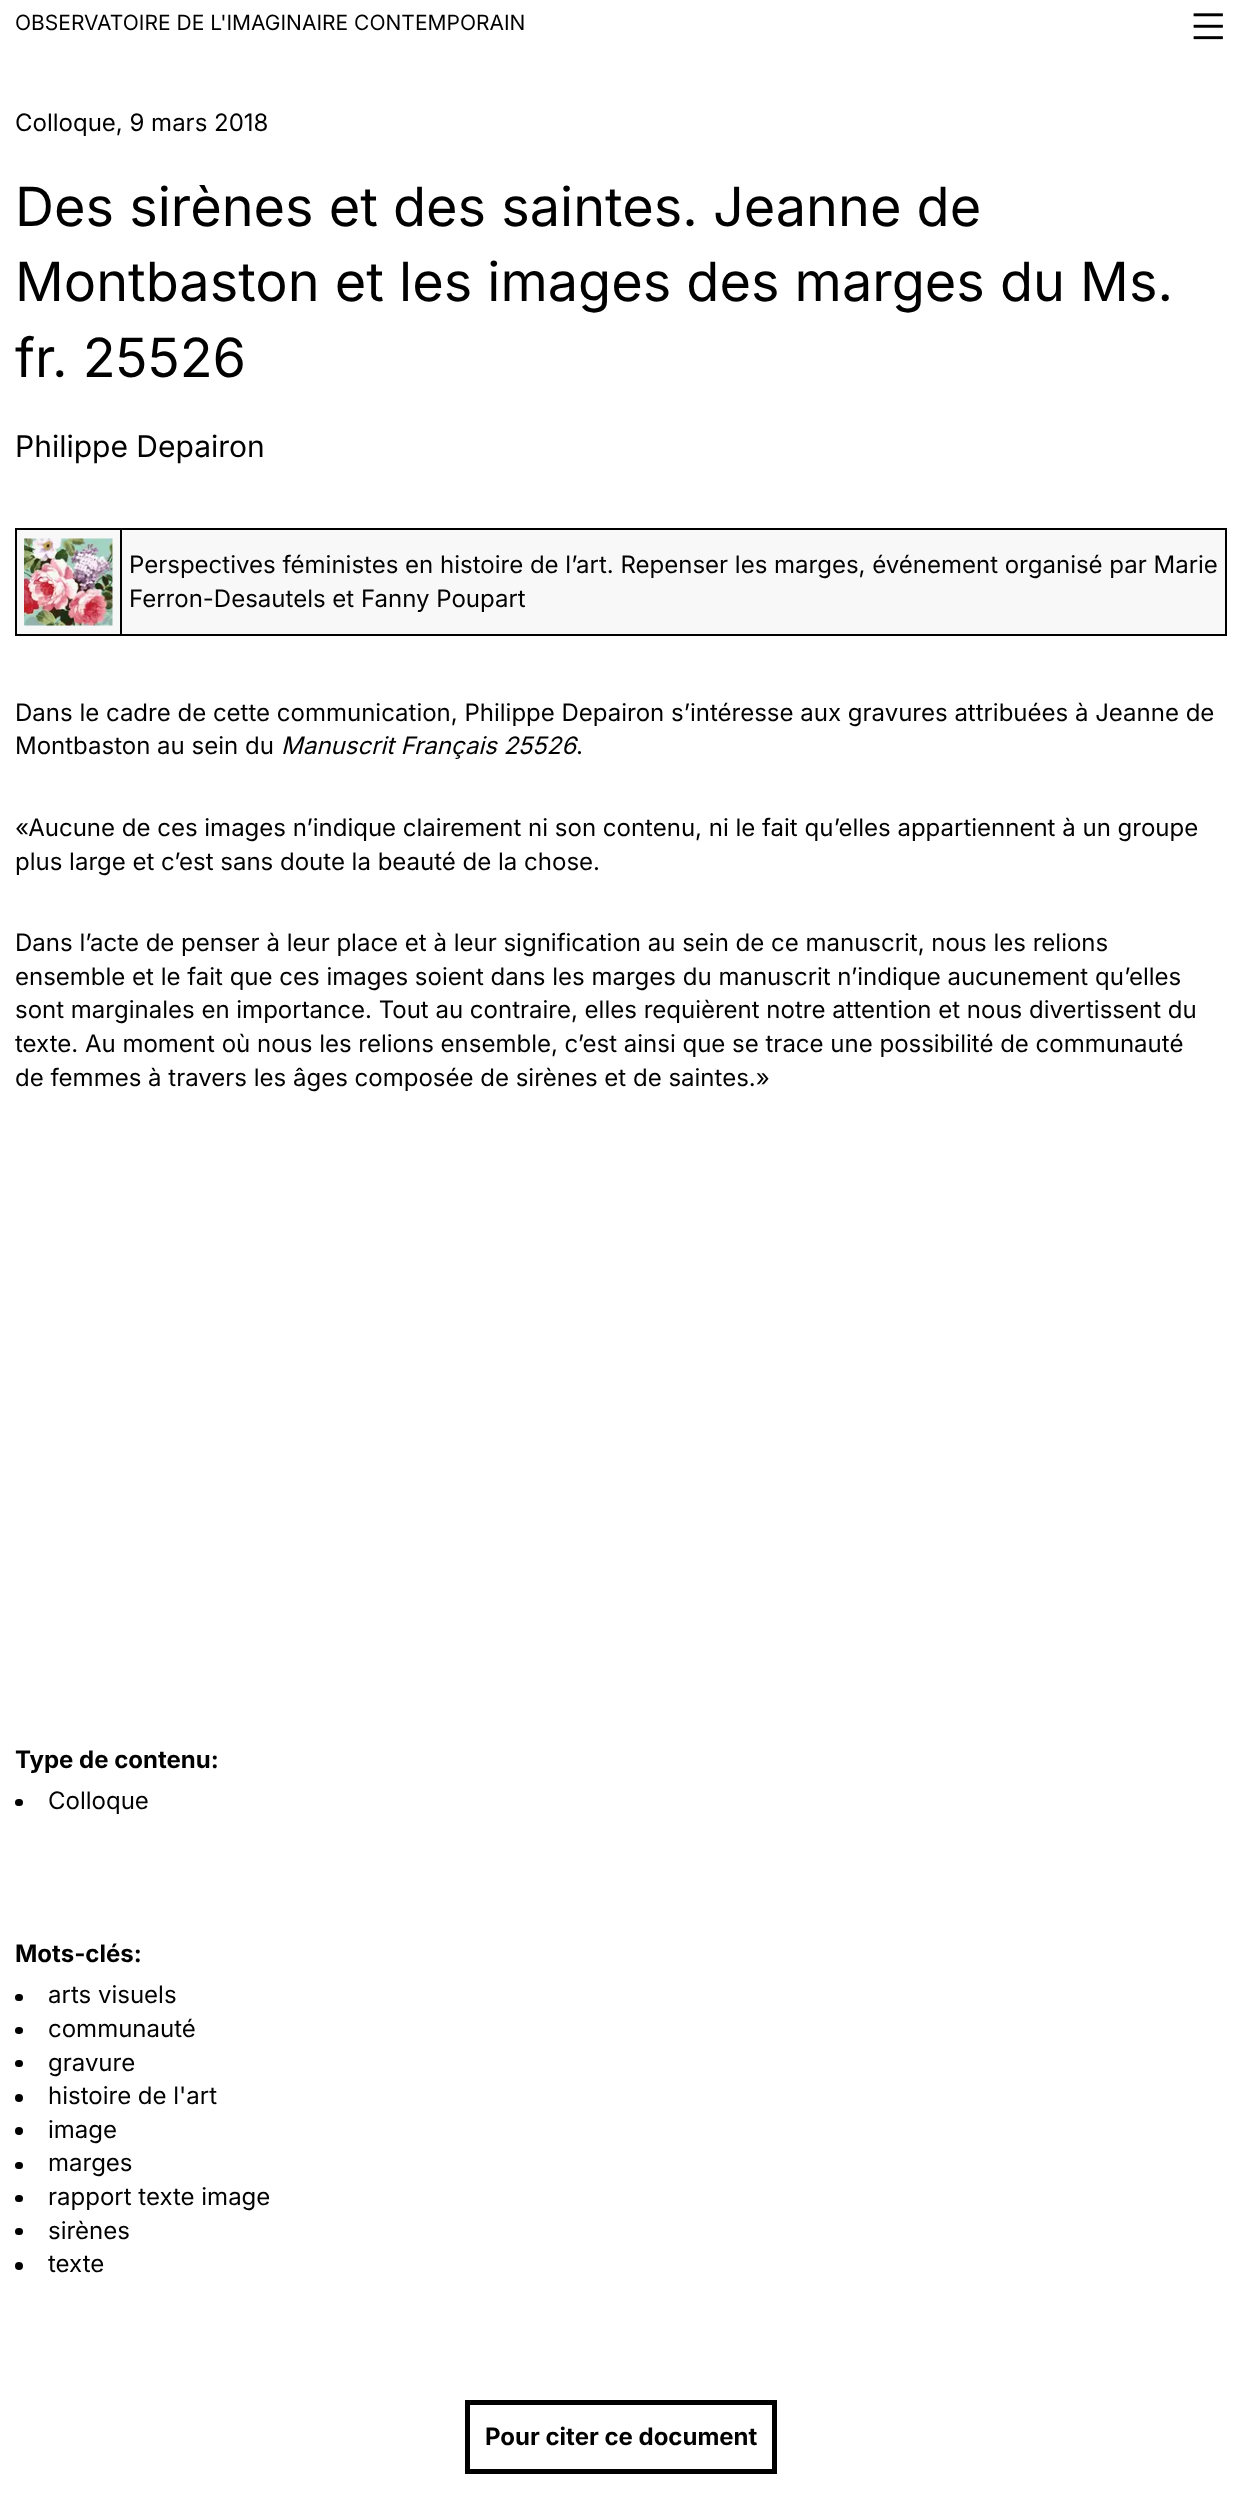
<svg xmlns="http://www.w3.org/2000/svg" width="1241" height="2514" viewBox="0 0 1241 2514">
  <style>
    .t1 { font: 21px Inter; fill: #000; }
    .t2 { font: 24px Inter; fill: #000; }
    .t3 { font: 54px Inter; fill: #000; }
    .t4 { font: 30px Inter; fill: #000; }
    .t5 { font: italic 24px Inter; fill: #000; }
    .t6 { font: bold 24px Inter; fill: #000; }
  </style>
  <rect width="100%" height="100%" fill="#fff"/>
  <text x="15" y="30" class="t1">OBSERVATOIRE DE L'IMAGINAIRE CONTEMPORAIN</text>
  <image x="1193" y="13" width="30" height="27" href="images/1.png"/>
  <text x="15" y="131" class="t2">Colloque, 9 mars 2018</text>
  <text x="15" y="226" class="t3">Des sirènes et des saintes. Jeanne de</text>
  <text x="15" y="301" class="t3">Montbaston et les images des marges du Ms.</text>
  <text x="15" y="377" class="t3">fr. 25526</text>
  <text x="15" y="457" class="t4">Philippe Depairon</text>
  <rect x="16" y="529" width="1210" height="106" fill="#f9f8f8" stroke="#000" stroke-width="2"/>
  <rect x="120" y="530" width="2" height="105" fill="#000"/>
  <image x="24" y="538" width="89" height="88" href="images/2.png"/>
  <text x="129" y="573" class="t2">Perspectives féministes en histoire de l’art. Repenser les marges, événement organisé par Marie</text>
  <text x="129" y="607" class="t2">Ferron-Desautels et Fanny Poupart</text>
  <text x="15" y="721" class="t2">Dans le cadre de cette communication, Philippe Depairon s’intéresse aux gravures attribuées à Jeanne de</text>
  <text x="15" y="754" class="t2">Montbaston au sein du</text>
  <text x="281" y="754" class="t5">Manuscrit Français 25526</text>
  <text x="576" y="754" class="t2">.</text>
  <text x="15" y="836" class="t2">«Aucune de ces images n’indique clairement ni son contenu, ni le fait qu’elles appartiennent à un groupe</text>
  <text x="15" y="870" class="t2">plus large et c’est sans doute la beauté de la chose.</text>
  <text x="15" y="951" class="t2">Dans l’acte de penser à leur place et à leur signification au sein de ce manuscrit, nous les relions</text>
  <text x="15" y="985" class="t2">ensemble et le fait que ces images soient dans les marges du manuscrit n’indique aucunement qu’elles</text>
  <text x="15" y="1018" class="t2">sont marginales en importance. Tout au contraire, elles requièrent notre attention et nous divertissent du</text>
  <text x="15" y="1052" class="t2">texte. Au moment où nous les relions ensemble, c’est ainsi que se trace une possibilité de communauté</text>
  <text x="15" y="1086" class="t2">de femmes à travers les âges composée de sirènes et de saintes.»</text>
  <text x="15" y="1768" class="t6">Type de contenu:</text>
  <rect x="15" y="1799" width="8" height="7" rx="3.5" fill="#000"/>
  <text x="48" y="1809" class="t2">Colloque</text>
  <text x="15" y="1962" class="t6">Mots-clés:</text>
  <rect x="15" y="1994" width="8" height="7" rx="3.5" fill="#000"/>
  <text x="48" y="2003" class="t2">arts visuels</text>
  <rect x="15" y="2027" width="8" height="7" rx="3.5" fill="#000"/>
  <text x="48" y="2037" class="t2">communauté</text>
  <rect x="15" y="2060" width="8" height="7" rx="3.5" fill="#000"/>
  <text x="48" y="2071" class="t2">gravure</text>
  <circle cx="19" cy="2098" r="4" fill="#000"/>
  <text x="48" y="2104" class="t2">histoire de l'art</text>
  <circle cx="19" cy="2131" r="4" fill="#000"/>
  <text x="48" y="2138" class="t2">image</text>
  <rect x="15" y="2162" width="8" height="7" rx="3.5" fill="#000"/>
  <text x="48" y="2171" class="t2">marges</text>
  <rect x="15" y="2195" width="8" height="7" rx="3.5" fill="#000"/>
  <text x="48" y="2205" class="t2">rapport texte image</text>
  <rect x="15" y="2228" width="8" height="7" rx="3.5" fill="#000"/>
  <text x="48" y="2239" class="t2">sirènes</text>
  <circle cx="19" cy="2266" r="4" fill="#000"/>
  <text x="48" y="2272" class="t2">texte</text>
  <rect x="467.5" y="2402.5" width="307" height="69" fill="none" stroke="#000" stroke-width="5"/>
  <text x="485" y="2445" class="t6">Pour citer ce document</text>
</svg>
